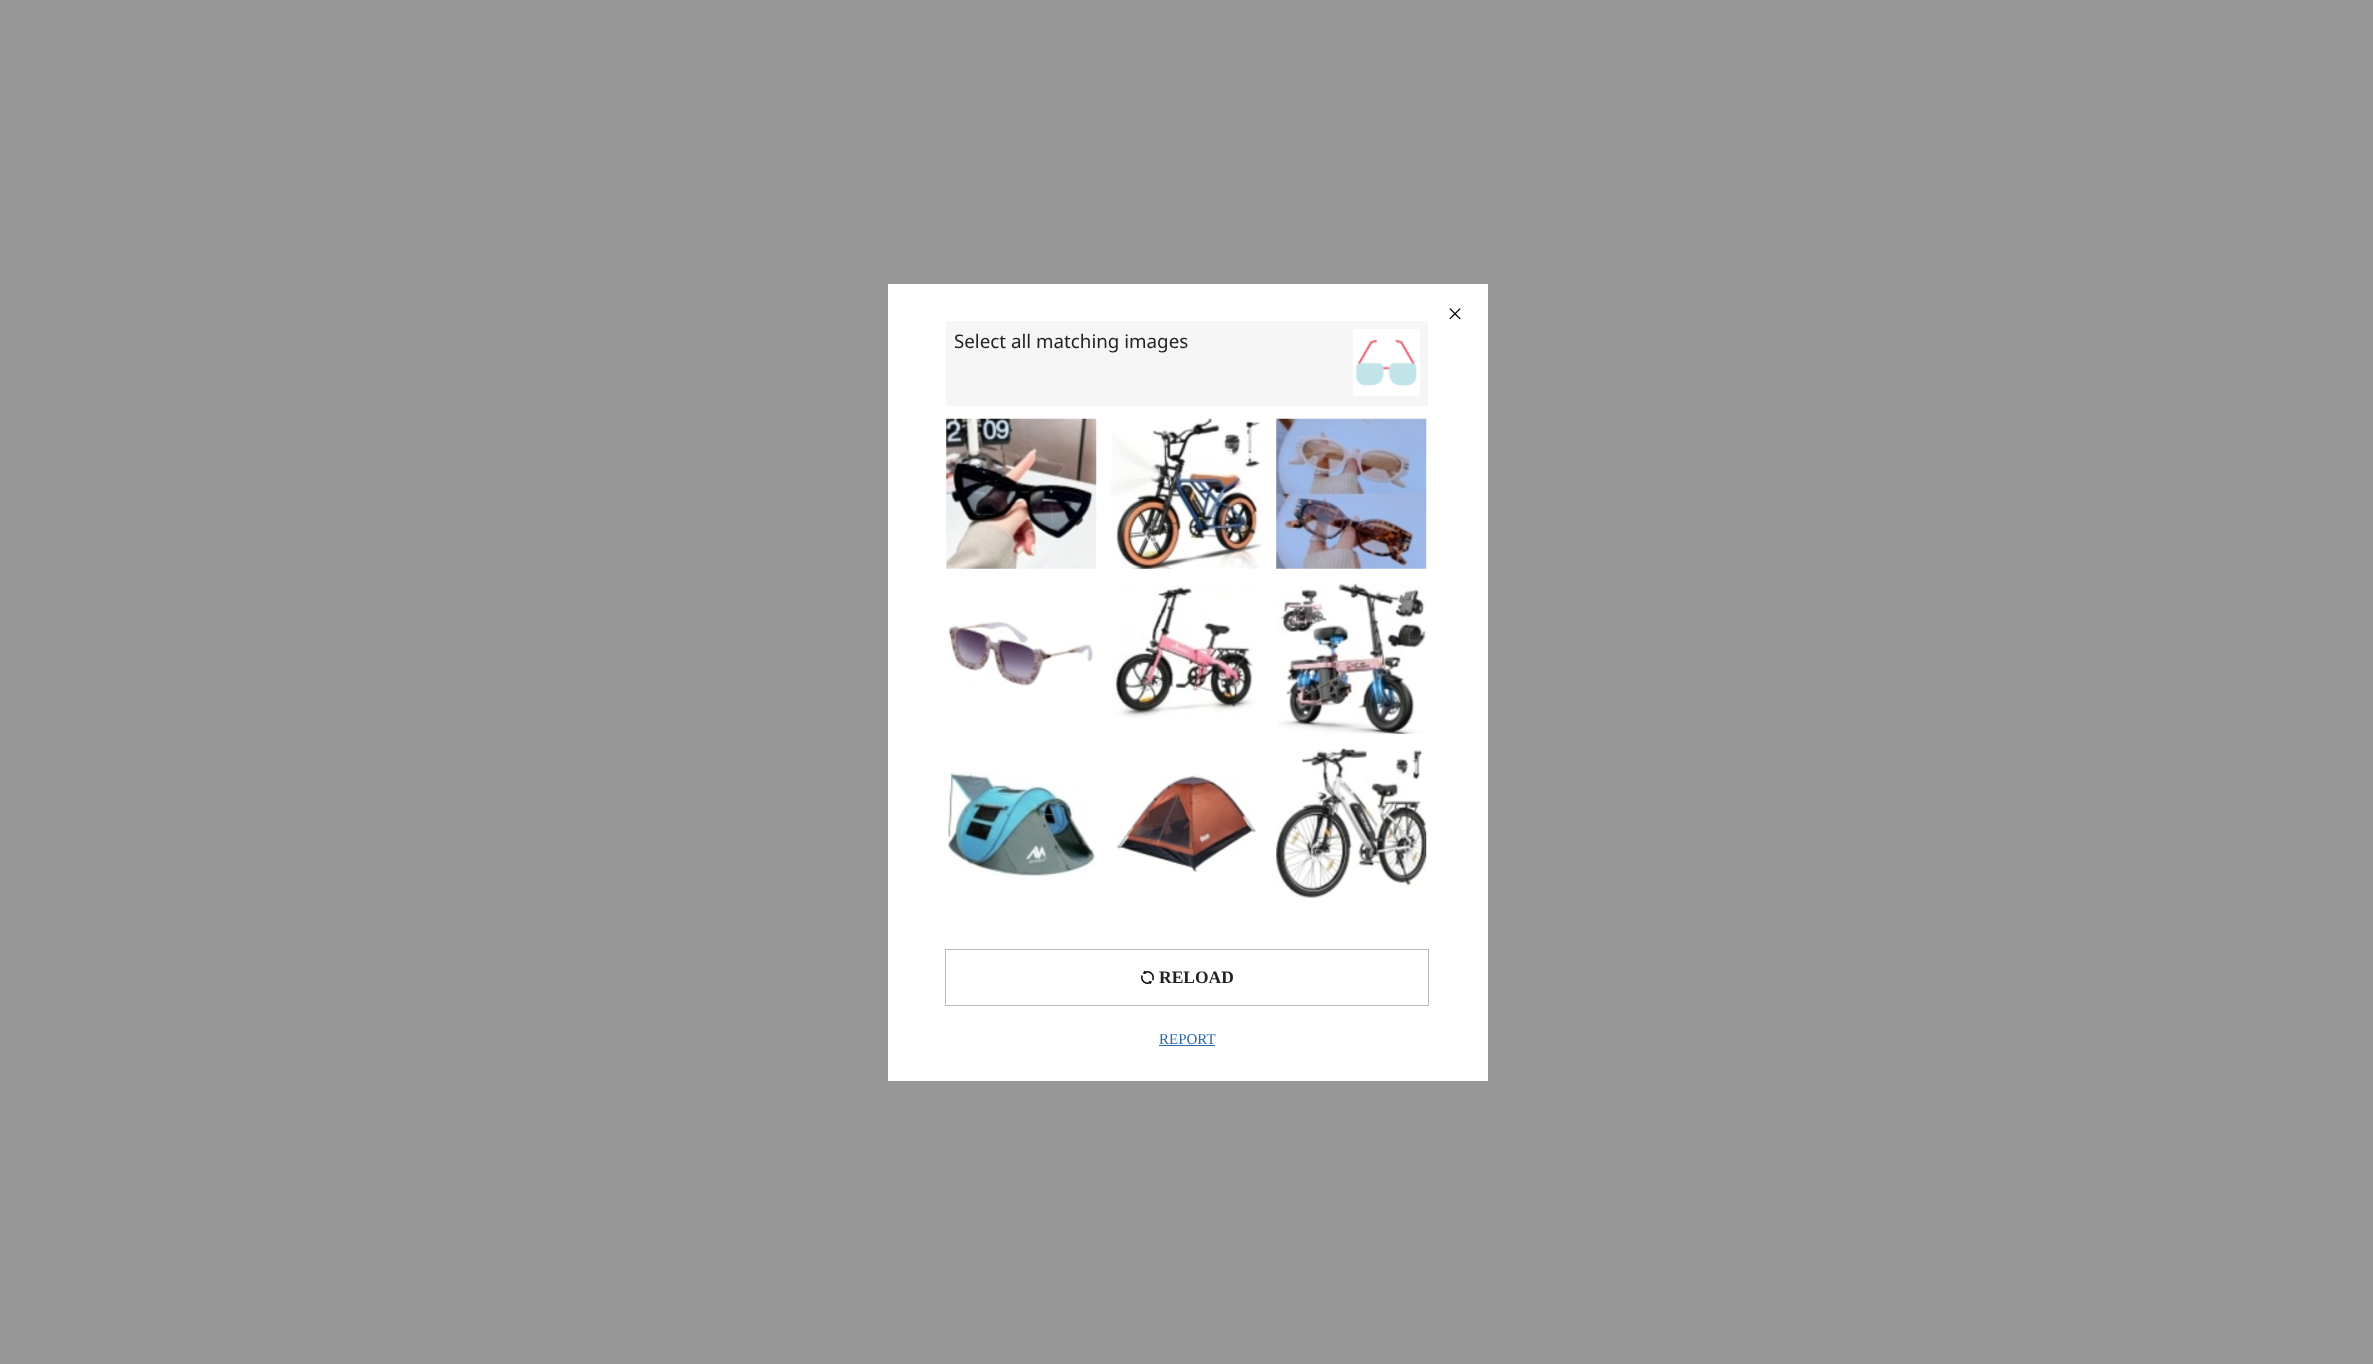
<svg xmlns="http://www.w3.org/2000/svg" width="2373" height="1364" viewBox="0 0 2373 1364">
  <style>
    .t1 { font: 18.75px Noto Sans; fill: #222; }
    .t2 { font: bold 17.5px Liberation Serif; fill: #222; }
    .t3 { font: 15px Liberation Serif; fill: #2d68a8; }
  </style>
  <rect width="100%" height="100%" fill="#979797"/>
  <rect x="888" y="284" width="600" height="797" fill="#0000004d" filter="blur(0.5px)"/>
  <rect x="888" y="284" width="600" height="797" fill="#fff"/>
  <image x="1449" y="308" width="12" height="12" href="images/1.png"/>
  <rect x="946" y="321" width="482" height="85" fill="#f6f6f6"/>
  <text x="954" y="348" class="t1">Select all matching images</text>
  <rect x="1353" y="329" width="67" height="67" fill="#fff"/>
  <image x="1356" y="339" width="61" height="48" href="images/2.png"/>
  <image x="946" y="418" width="151" height="151" href="images/3.png"/>
  <image x="1111" y="418" width="151" height="151" href="images/4.png"/>
  <image x="1276" y="418" width="151" height="151" href="images/5.png"/>
  <image x="948" y="621" width="146" height="65" href="images/6.png"/>
  <image x="1112" y="585" width="144" height="134" href="images/7.png"/>
  <image x="1277" y="583" width="149" height="151" href="images/8.png"/>
  <image x="947" y="772" width="149" height="106" href="images/9.png"/>
  <image x="1115" y="775" width="142" height="97" href="images/10.png"/>
  <image x="1276" y="748" width="151" height="150" href="images/11.png"/>
  <rect x="945.5" y="949.5" width="483" height="56" fill="none" stroke="#bbb"/>
  <image x="1141" y="970" width="13" height="15" href="images/12.png"/>
  <text x="1159" y="983" class="t2">RELOAD</text>
  <text x="1159" y="1044" class="t3">REPORT</text>
  <rect x="1159" y="1045" width="56" height="1" fill="#2d68a8"/>
</svg>
